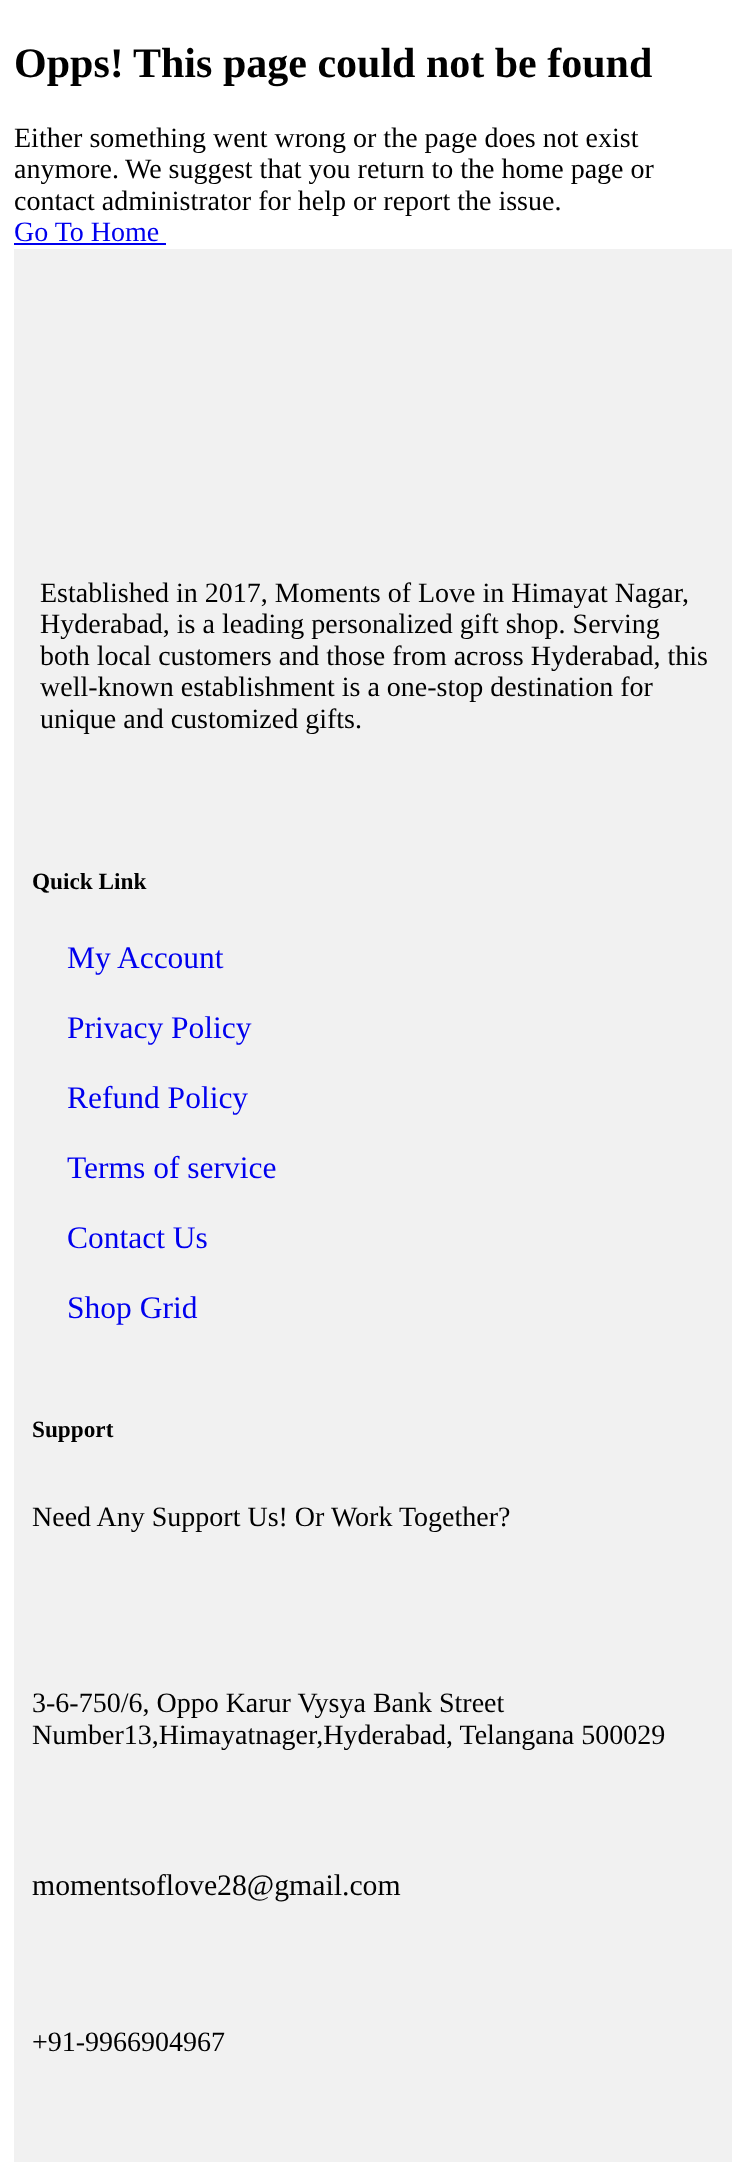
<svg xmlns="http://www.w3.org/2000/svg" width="745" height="2162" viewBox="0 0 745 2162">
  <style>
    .t1 { font: bold 42px Liberation Serif; fill: #000; }
    .t2 { font: 28px Liberation Serif; fill: #000; }
    .t3 { font: 28px Liberation Serif; fill: #00e; }
    .t4 { font: bold 23.25px Liberation Serif; fill: #000; }
    .t5 { font: 31.5px Liberation Serif; fill: #00e; }
    .t6 { font: 29.75px Liberation Serif; fill: #000; }
  </style>
  <rect width="100%" height="100%" fill="#fff"/>
  <text x="14" y="77" class="t1">Opps!</text>
  <text x="133" y="77" class="t1">This page could not be found</text>
  <text x="14" y="147" class="t2">Either something went wrong or the page does not exist</text>
  <text x="14" y="178" class="t2">anymore.</text>
  <text x="125" y="178" class="t2">We suggest that you return to the home page or</text>
  <text x="14" y="210" class="t2">contact administrator for help or report the issue.</text>
  <text x="14" y="241" class="t3">Go To Home</text>
  <rect x="14" y="243" width="152" height="2" fill="#00e"/>
  <rect x="14" y="249" width="718" height="1913" fill="#f1f1f1"/>
  <text x="40" y="602" class="t2">Established in 2017, Moments of Love in Himayat Nagar,</text>
  <text x="40" y="633" class="t2">Hyderabad, is a leading personalized gift shop. Serving</text>
  <text x="40" y="665" class="t2">both local customers and those from across Hyderabad, this</text>
  <text x="40" y="696" class="t2">well-known establishment is a one-stop destination for</text>
  <text x="40" y="728" class="t2">unique and customized gifts.</text>
  <text x="32" y="889" class="t4">Quick Link</text>
  <text x="67" y="968" class="t5">My Account</text>
  <text x="67" y="1038" class="t5">Privacy Policy</text>
  <text x="67" y="1108" class="t5">Refund Policy</text>
  <text x="67" y="1178" class="t5">Terms of service</text>
  <text x="67" y="1248" class="t5">Contact Us</text>
  <text x="67" y="1318" class="t5">Shop Grid</text>
  <text x="32" y="1437" class="t4">Support</text>
  <text x="32" y="1526" class="t2">Need Any Support Us! Or Work Together?</text>
  <text x="32" y="1712" class="t2">3-6-750/6, Oppo Karur Vysya Bank Street</text>
  <text x="32" y="1744" class="t2">Number13,Himayatnager,Hyderabad, Telangana 500029</text>
  <text x="32" y="1895" class="t6">momentsoflove28@gmail.com</text>
  <text x="32" y="2051" class="t2">+91-9966904967</text>
</svg>
